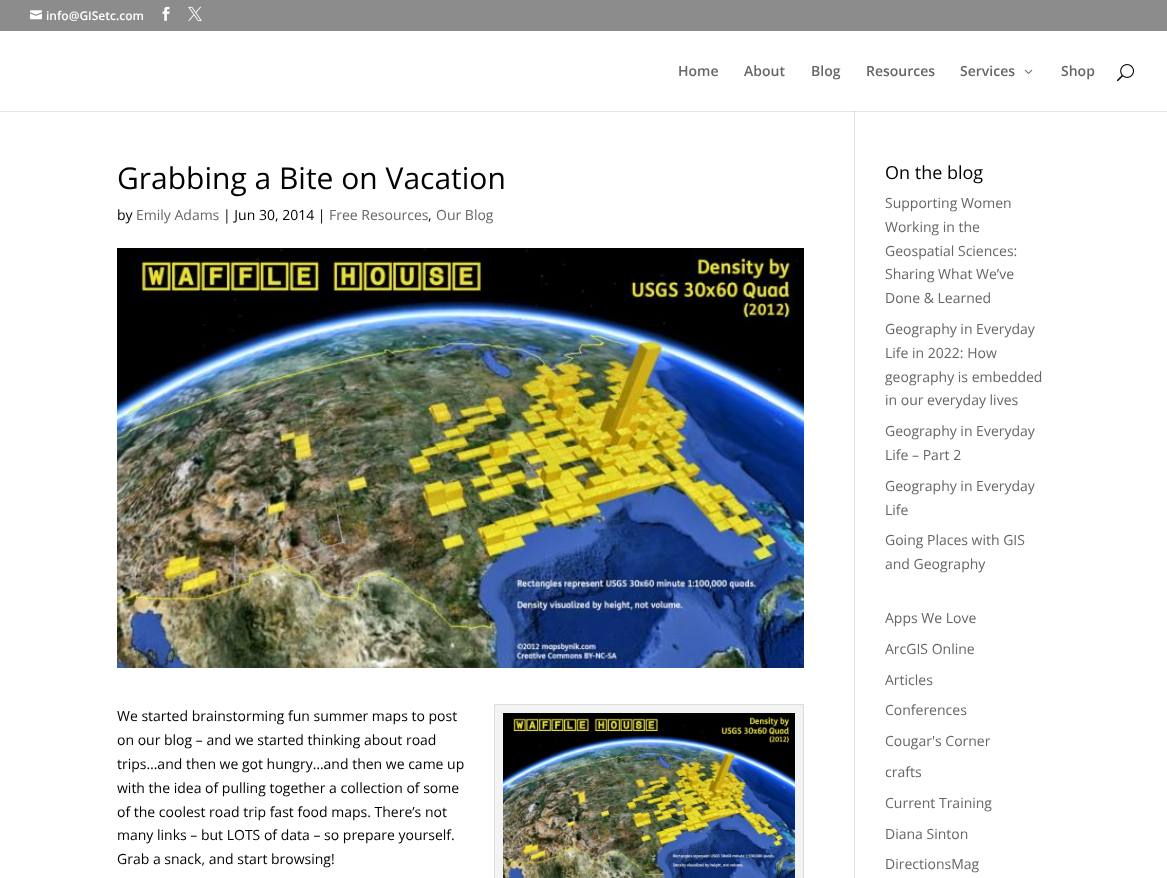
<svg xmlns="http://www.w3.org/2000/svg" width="1167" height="878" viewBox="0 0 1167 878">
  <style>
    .t1 { font: 600 12px Open Sans; fill: #fff; }
    .t2 { font: 600 14px Open Sans; fill: #666; }
    .t3 { font: 30px Open Sans; fill: #000; }
    .t4 { font: 14px Open Sans; fill: #000; }
    .t5 { font: 14px Open Sans; fill: #666; }
    .t6 { font: 18px Open Sans; fill: #000; }
  </style>
  <rect width="100%" height="100%" fill="#fff"/>
  <rect x="0" y="111" width="1167" height="1" fill="#e6e6e6"/>
  <rect x="0" y="0" width="1167" height="31" fill="#8c8c8c"/>
  <image x="30" y="10" width="12" height="10" href="images/1.png"/>
  <text x="46" y="20" class="t1">info@GISetc.com</text>
  <image x="162" y="6" width="8" height="15" href="images/2.png"/>
  <image x="188" y="6" width="14" height="15" href="images/3.png"/>
  <rect x="854" y="105" width="1" height="773" fill="#e2e2e2"/>
  <rect x="854" y="105" width="1" height="6" fill="#fff"/>
  <text x="678" y="76" class="t2">Home</text>
  <text x="744" y="76" class="t2">About</text>
  <text x="811" y="76" class="t2">Blog</text>
  <text x="866" y="76" class="t2">Resources</text>
  <text x="960" y="76" class="t2">Services</text>
  <image x="1024" y="69" width="9" height="5" href="images/4.png"/>
  <text x="1061" y="76" class="t2">Shop</text>
  <image x="1117" y="64" width="17" height="18" href="images/5.png"/>
  <rect x="854" y="111" width="1" height="1" fill="#cbcbcb"/>
  <text x="117" y="189" class="t3">Grabbing a Bite on Vacation</text>
  <text x="117" y="220" class="t4">by</text>
  <text x="136" y="220" class="t5">Emily Adams</text>
  <text x="223" y="220" class="t4">| Jun 30, 2014 |</text>
  <text x="329" y="220" class="t5">Free Resources</text>
  <text x="428" y="220" class="t4">,</text>
  <text x="436" y="220" class="t5">Our Blog</text>
  <image x="117" y="248" width="687" height="420" href="images/6.png"/>
  <text x="117" y="721" class="t4">We started brainstorming fun summer maps to post</text>
  <text x="117" y="745" class="t4">on our blog – and we started thinking about road</text>
  <text x="117" y="769" class="t4">trips…and then we got hungry…and then we came up</text>
  <text x="117" y="793" class="t4">with the idea of pulling together a collection of some</text>
  <text x="117" y="817" class="t4">of the coolest road trip fast food maps. There’s not</text>
  <text x="117" y="840" class="t4">many links – but LOTS of data – so prepare yourself.</text>
  <text x="117" y="864" class="t4">Grab a snack, and start browsing!</text>
  <rect x="494.5" y="704.5" width="309" height="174" fill="#f3f3f3" stroke="#ddd"/>
  <image x="503" y="713" width="292" height="165" href="images/7.png"/>
  <text x="885" y="179" class="t6">On the blog</text>
  <text x="885" y="208" class="t5">Supporting Women</text>
  <text x="885" y="232" class="t5">Working in the</text>
  <text x="885" y="256" class="t5">Geospatial Sciences:</text>
  <text x="885" y="279" class="t5">Sharing What We’ve</text>
  <text x="885" y="303" class="t5">Done &amp; Learned</text>
  <text x="885" y="334" class="t5">Geography in Everyday</text>
  <text x="885" y="358" class="t5">Life in 2022: How</text>
  <text x="885" y="382" class="t5">geography is embedded</text>
  <text x="885" y="405" class="t5">in our everyday lives</text>
  <text x="885" y="436" class="t5">Geography in Everyday</text>
  <text x="885" y="460" class="t5">Life – Part 2</text>
  <text x="885" y="491" class="t5">Geography in Everyday</text>
  <text x="885" y="515" class="t5">Life</text>
  <text x="885" y="545" class="t5">Going Places with GIS</text>
  <text x="885" y="569" class="t5">and Geography</text>
  <text x="885" y="623" class="t5">Apps We Love</text>
  <text x="885" y="654" class="t5">ArcGIS Online</text>
  <text x="885" y="685" class="t5">Articles</text>
  <text x="885" y="715" class="t5">Conferences</text>
  <text x="885" y="746" class="t5">Cougar's Corner</text>
  <text x="885" y="777" class="t5">crafts</text>
  <text x="885" y="808" class="t5">Current Training</text>
  <text x="885" y="839" class="t5">Diana Sinton</text>
  <text x="885" y="869" class="t5">DirectionsMag</text>
</svg>
